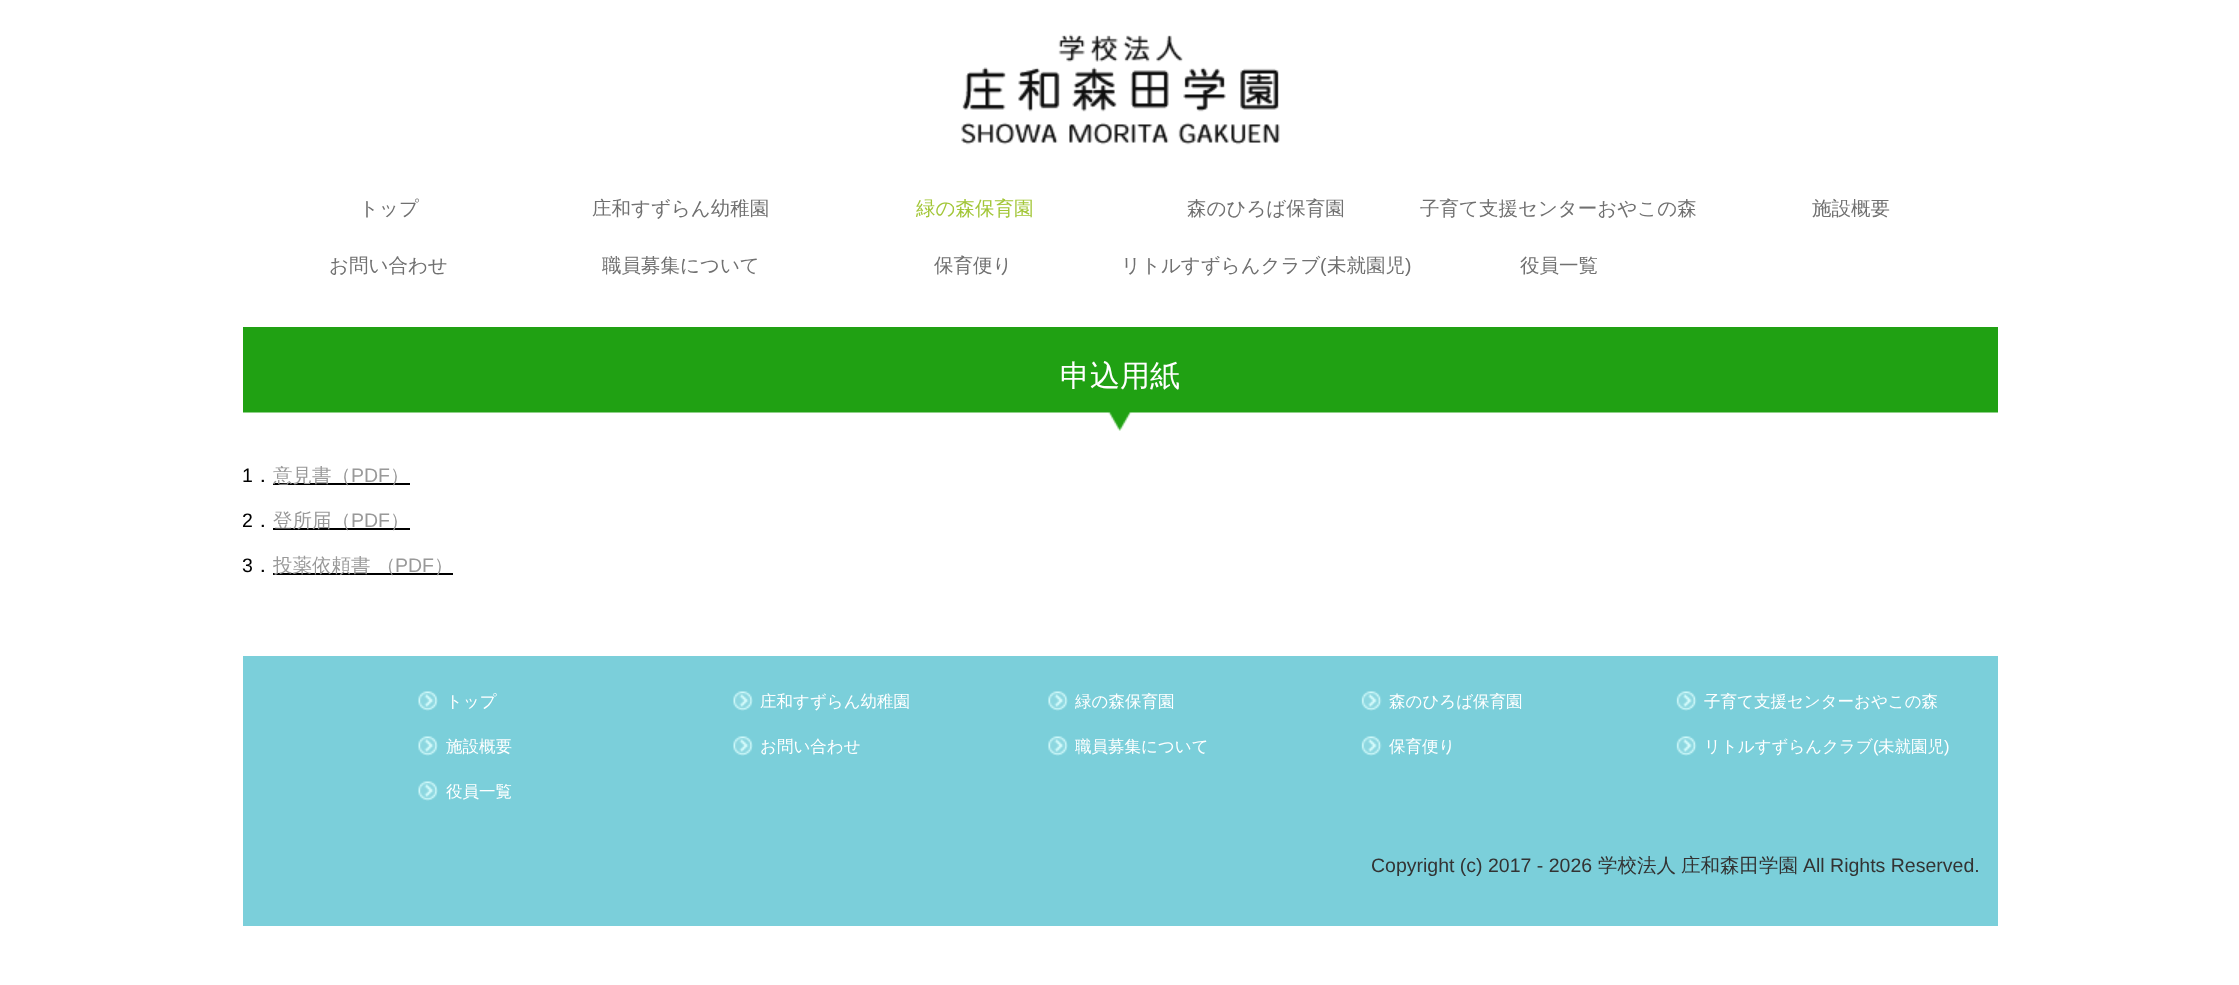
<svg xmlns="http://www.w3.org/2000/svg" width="2239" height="985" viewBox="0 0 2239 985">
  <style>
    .t1 { font: 500 19.5px WenQuanYi Zen Hei; fill: #707070; }
    .t2 { font: 500 19.5px WenQuanYi Zen Hei; fill: #a2c637; }
    .t3 { font: 19.5px Liberation Sans; fill: #707070; }
    .t4 { font: 500 30px WenQuanYi Zen Hei; fill: #fff; }
    .t5 { font: 19.5px Liberation Sans; fill: #000; }
    .t6 { font: 500 19.5px WenQuanYi Zen Hei; fill: #000; }
    .t7 { font: 500 19.5px WenQuanYi Zen Hei; fill: #999; }
    .t8 { font: 19.5px Liberation Sans; fill: #999; }
    .t9 { font: 500 16.5px WenQuanYi Zen Hei; fill: #fff; }
    .t10 { font: 16.5px Liberation Sans; fill: #fff; }
    .t11 { font: 19.5px Liberation Sans; fill: #333; }
    .t12 { font: 500 19.5px WenQuanYi Zen Hei; fill: #333; }
  </style>
  <rect width="100%" height="100%" fill="#fff"/>
  <image x="961" y="34" width="319" height="111" href="images/1.png"/>
  <text x="359" y="215" class="t1">トップ</text>
  <text x="592" y="215" class="t1">庄和すずらん幼稚園</text>
  <text x="916" y="215" class="t2">緑の森保育園</text>
  <text x="1187" y="215" class="t1">森のひろば保育園</text>
  <text x="1420" y="215" class="t1">子育て支援センターおやこの森</text>
  <text x="1812" y="215" class="t1">施設概要</text>
  <text x="329" y="272" class="t1">お問い合わせ</text>
  <text x="602" y="272" class="t1">職員募集について</text>
  <text x="934" y="272" class="t1">保育便り</text>
  <text x="1121" y="272" class="t1">リトルすずらんクラブ</text>
  <text x="1320" y="272" class="t3">(</text>
  <text x="1327" y="272" class="t1">未就園児</text>
  <text x="1405" y="272" class="t3">)</text>
  <text x="1520" y="272" class="t1">役員一覧</text>
  <image x="243" y="327" width="1755" height="104" href="images/2.png"/>
  <text x="1060" y="386" class="t4">申込用紙</text>
  <text x="242" y="482" class="t5">1</text>
  <text x="253" y="482" class="t6">．</text>
  <rect x="273" y="483" width="137" height="2" fill="#000"/>
  <text x="273" y="482" class="t7">意見書（</text>
  <text x="351" y="482" class="t8">PDF</text>
  <text x="390" y="482" class="t7">）</text>
  <text x="242" y="527" class="t5">2</text>
  <text x="253" y="527" class="t6">．</text>
  <rect x="273" y="528" width="137" height="2" fill="#000"/>
  <text x="273" y="527" class="t7">登所届（</text>
  <text x="351" y="527" class="t8">PDF</text>
  <text x="390" y="527" class="t7">）</text>
  <text x="242" y="572" class="t5">3</text>
  <text x="253" y="572" class="t6">．</text>
  <rect x="273" y="573" width="180" height="2" fill="#000"/>
  <text x="273" y="572" class="t7">投薬依頼書 （</text>
  <text x="395" y="572" class="t8">PDF</text>
  <text x="434" y="572" class="t7">）</text>
  <rect x="243" y="656" width="1755" height="270" fill="#7bcfda"/>
  <image x="418" y="691" width="20" height="20" href="images/3.png"/>
  <text x="446" y="707" class="t9">トップ</text>
  <image x="733" y="691" width="20" height="20" href="images/3.png"/>
  <text x="760" y="707" class="t9">庄和すずらん幼稚園</text>
  <image x="1048" y="691" width="20" height="20" href="images/4.png"/>
  <text x="1075" y="707" class="t9">緑の森保育園</text>
  <image x="1361" y="691" width="21" height="20" href="images/5.png"/>
  <text x="1389" y="707" class="t9">森のひろば保育園</text>
  <image x="1676" y="691" width="21" height="20" href="images/6.png"/>
  <text x="1704" y="707" class="t9">子育て支援センターおやこの森</text>
  <image x="418" y="736" width="20" height="20" href="images/3.png"/>
  <text x="446" y="752" class="t9">施設概要</text>
  <image x="733" y="736" width="20" height="20" href="images/3.png"/>
  <text x="760" y="752" class="t9">お問い合わせ</text>
  <image x="1048" y="736" width="20" height="20" href="images/4.png"/>
  <text x="1075" y="752" class="t9">職員募集について</text>
  <image x="1361" y="736" width="21" height="20" href="images/5.png"/>
  <text x="1389" y="752" class="t9">保育便り</text>
  <image x="1676" y="736" width="21" height="20" href="images/6.png"/>
  <text x="1704" y="752" class="t9">リトルすずらんクラブ</text>
  <text x="1873" y="752" class="t10">(</text>
  <text x="1878" y="752" class="t9">未就園児</text>
  <text x="1944" y="752" class="t10">)</text>
  <image x="418" y="781" width="20" height="20" href="images/3.png"/>
  <text x="446" y="797" class="t9">役員一覧</text>
  <text x="1371" y="872" class="t11">Copyright (c) 2017 - 2026</text>
  <text x="1598" y="872" class="t12">学校法人</text>
  <text x="1681" y="872" class="t12">庄和森田学園</text>
  <text x="1803" y="872" class="t11">All Rights Reserved.</text>
</svg>
